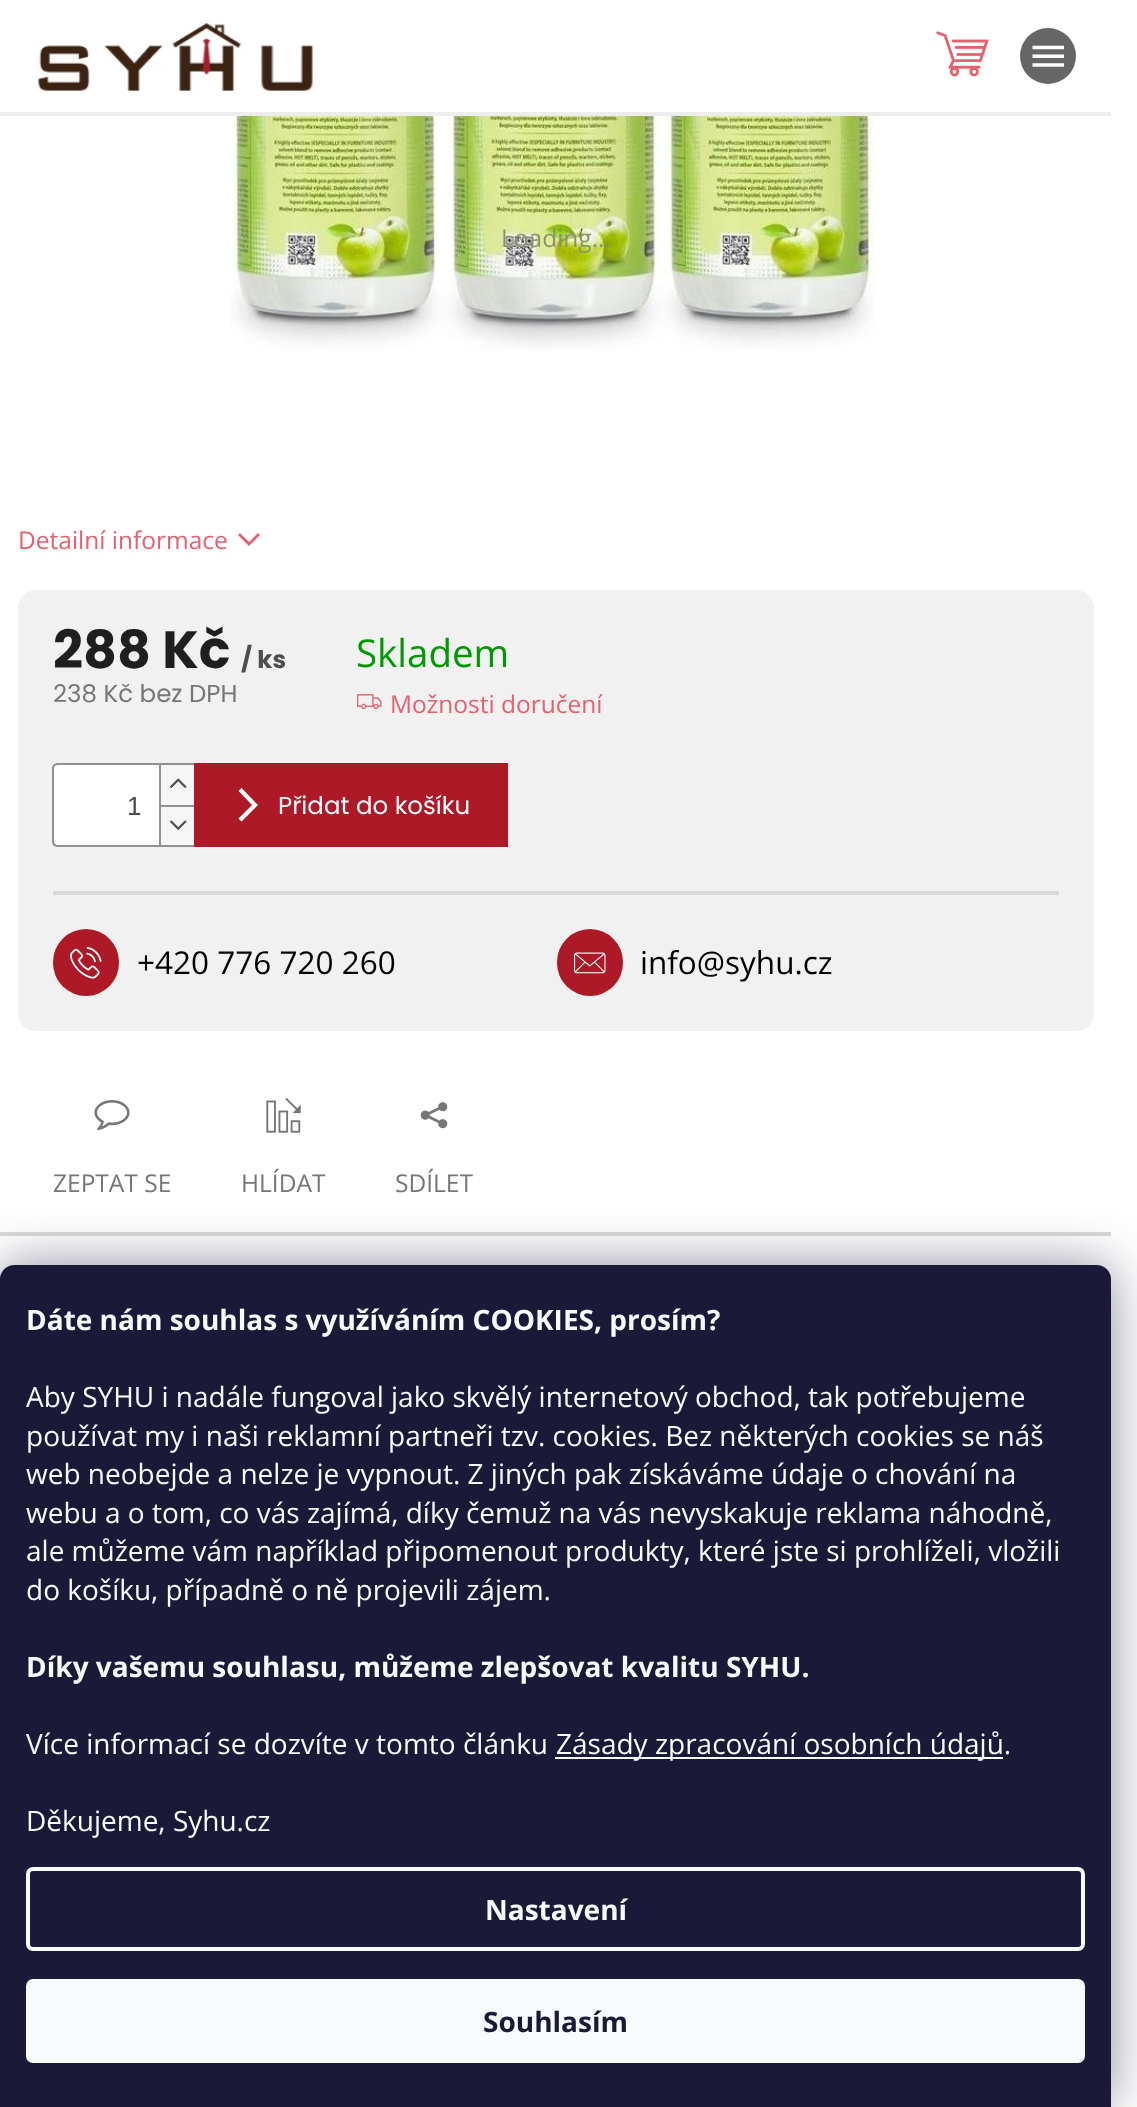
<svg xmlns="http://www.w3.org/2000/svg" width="1137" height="2107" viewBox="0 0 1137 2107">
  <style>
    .t1 { font: 24.5px Open Sans; fill: #8b926a; }
    .t2 { font: 24.5px Open Sans; fill: #e7606d; }
    .t3 { font: bold 52.5px Poppins; fill: #1f1f1f; }
    .t4 { font: bold 24.5px Poppins; fill: #4d4d4d; }
    .t5 { font: 24.5px Poppins; fill: #767676; }
    .t6 { font: 38.5px Open Sans; fill: #009901; }
    .t7 { font: 26px Liberation Sans; fill: #4d4d4d; }
    .t8 { font: 24.5px Poppins; fill: #fff; }
    .t9 { font: 31.5px Open Sans; fill: #000; }
    .t10 { font: 24.5px Open Sans; fill: #767676; }
    .t11 { font: bold 28px Open Sans; fill: #f8fafb; }
    .t12 { font: 28px Open Sans; fill: #f8fafb; }
    .t13 { font: bold 28px Open Sans; fill: #1a1937; }
  </style>
  <rect width="100%" height="100%" fill="#fff"/>
  <rect x="0" y="112" width="1111" height="4" fill="#ededed"/>
  <image x="35" y="22" width="279" height="72" href="images/1.png"/>
  <circle cx="1048" cy="56" r="28" fill="#666"/>
  <image x="1032" y="45" width="32" height="22" href="images/2.png"/>
  <image x="936" y="31" width="53" height="46" href="images/3.png"/>
  <rect x="0" y="1232" width="1111" height="4" fill="#dadada"/>
  <image x="230" y="116" width="645" height="235" href="images/4.png"/>
  <text x="501" y="247" class="t1">Loading...</text>
  <text x="18" y="549" class="t2">Detailní informace</text>
  <path d="M238 535L240 533L249 542L258 533L260 535L249 546Z" fill="#e7606d"/>
  <rect x="18" y="590" width="1076" height="441" rx="18" fill="#f1f1f1"/>
  <text x="53" y="668" class="t3">288 Kč</text>
  <text x="241" y="668" class="t4">/ ks</text>
  <text x="53" y="702" class="t5">238 Kč bez DPH</text>
  <text x="356" y="667" class="t6">Skladem</text>
  <image x="357" y="694" width="25" height="16" href="images/5.png"/>
  <text x="390" y="713" class="t2">Možnosti doručení</text>
  <path d="M58 763H194V847H58C55 847 53 845 53 842V768C53 765 55 763 58 763Z" fill="#fff"/>
  <path d="M58 763H194V847H58C55 847 52 845 52 842V768C52 765 55 763 58 763ZM58 765H194V845H58C56 845 54 844 54 842V768C54 766 56 765 58 765Z" fill="#919191" fill-rule="evenodd"/>
  <text x="127" y="815" class="t7">1</text>
  <rect x="161" y="765" width="33" height="40" fill="#f6f6f6"/>
  <rect x="159" y="765" width="2" height="40" fill="#919191"/>
  <image x="169" y="778" width="18" height="11" href="images/6.png"/>
  <rect x="161" y="807" width="33" height="38" fill="#f6f6f6"/>
  <rect x="159" y="805" width="35" height="2" fill="#919191"/>
  <rect x="159" y="805" width="2" height="40" fill="#919191"/>
  <image x="169" y="820" width="18" height="11" href="images/7.png"/>
  <rect x="194" y="763" width="314" height="84" fill="#ae1928"/>
  <path d="M241.5 821.5L238.5 818.5L252 805L238.5 791L241.5 788L258 805Z" fill="#fff"/>
  <text x="278" y="814" class="t8">Přidat do košíku</text>
  <rect x="53" y="891" width="1006" height="4" fill="#d9d9d9"/>
  <rect x="53" y="929" width="66" height="67" rx="33" fill="#ae1928"/>
  <image x="70" y="947" width="32" height="32" href="images/8.png"/>
  <text x="137" y="974" class="t9">+420 776 720 260</text>
  <rect x="557" y="929" width="66" height="67" rx="33" fill="#ae1928"/>
  <image x="574" y="952" width="32" height="22" href="images/9.png"/>
  <text x="640" y="974" class="t9">info@syhu.cz</text>
  <image x="94" y="1100" width="36" height="31" href="images/10.png"/>
  <text x="53" y="1192" class="t10">ZEPTAT SE</text>
  <image x="266" y="1097" width="35" height="36" href="images/11.png"/>
  <text x="241" y="1192" class="t10">HLÍDAT</text>
  <image x="420" y="1102" width="28" height="27" href="images/12.png"/>
  <text x="395" y="1192" class="t10">SDÍLET</text>
  <rect x="0" y="1265" width="1111" height="842" rx="14" fill="#1b193980" filter="blur(26px)"/>
  <path d="M14 1265H1097C1104.5 1265 1111 1271.5 1111 1279V2107H0V1279C0 1271.5 6.5 1265 14 1265Z" fill="#1a1937"/>
  <text x="26" y="1330" class="t11">Dáte nám souhlas s využíváním COOKIES, prosím?</text>
  <text x="26" y="1407" class="t12">Aby SYHU i nadále fungoval jako skvělý internetový obchod, tak potřebujeme</text>
  <text x="26" y="1446" class="t12">používat my i naši reklamní partneři tzv. cookies. Bez některých cookies se náš</text>
  <text x="26" y="1484" class="t12">web neobejde a nelze je vypnout. Z jiných pak získáváme údaje o chování na</text>
  <text x="26" y="1523" class="t12">webu a o tom, co vás zajímá, díky čemuž na vás nevyskakuje reklama náhodně,</text>
  <text x="26" y="1561" class="t12">ale můžeme vám například připomenout produkty, které jste si prohlíželi, vložili</text>
  <text x="26" y="1600" class="t12">do košíku, případně o ně projevili zájem.</text>
  <text x="26" y="1677" class="t11">Díky vašemu souhlasu, můžeme zlepšovat kvalitu SYHU.</text>
  <text x="26" y="1754" class="t12">Více informací se dozvíte v tomto článku</text>
  <rect x="555" y="1757" width="448" height="2" fill="#f8fafb"/>
  <text x="556" y="1754" class="t12">Zásady zpracování osobních údajů.</text>
  <text x="26" y="1831" class="t12">Děkujeme, Syhu.cz</text>
  <rect x="28" y="1869" width="1055" height="80" rx="5" fill="none" stroke="#f8fafb" stroke-width="4"/>
  <text x="485" y="1920" class="t11">Nastavení</text>
  <rect x="26" y="1979" width="1059" height="84" rx="7" fill="#f8fafb"/>
  <text x="483" y="2032" class="t13">Souhlasím</text>
</svg>
